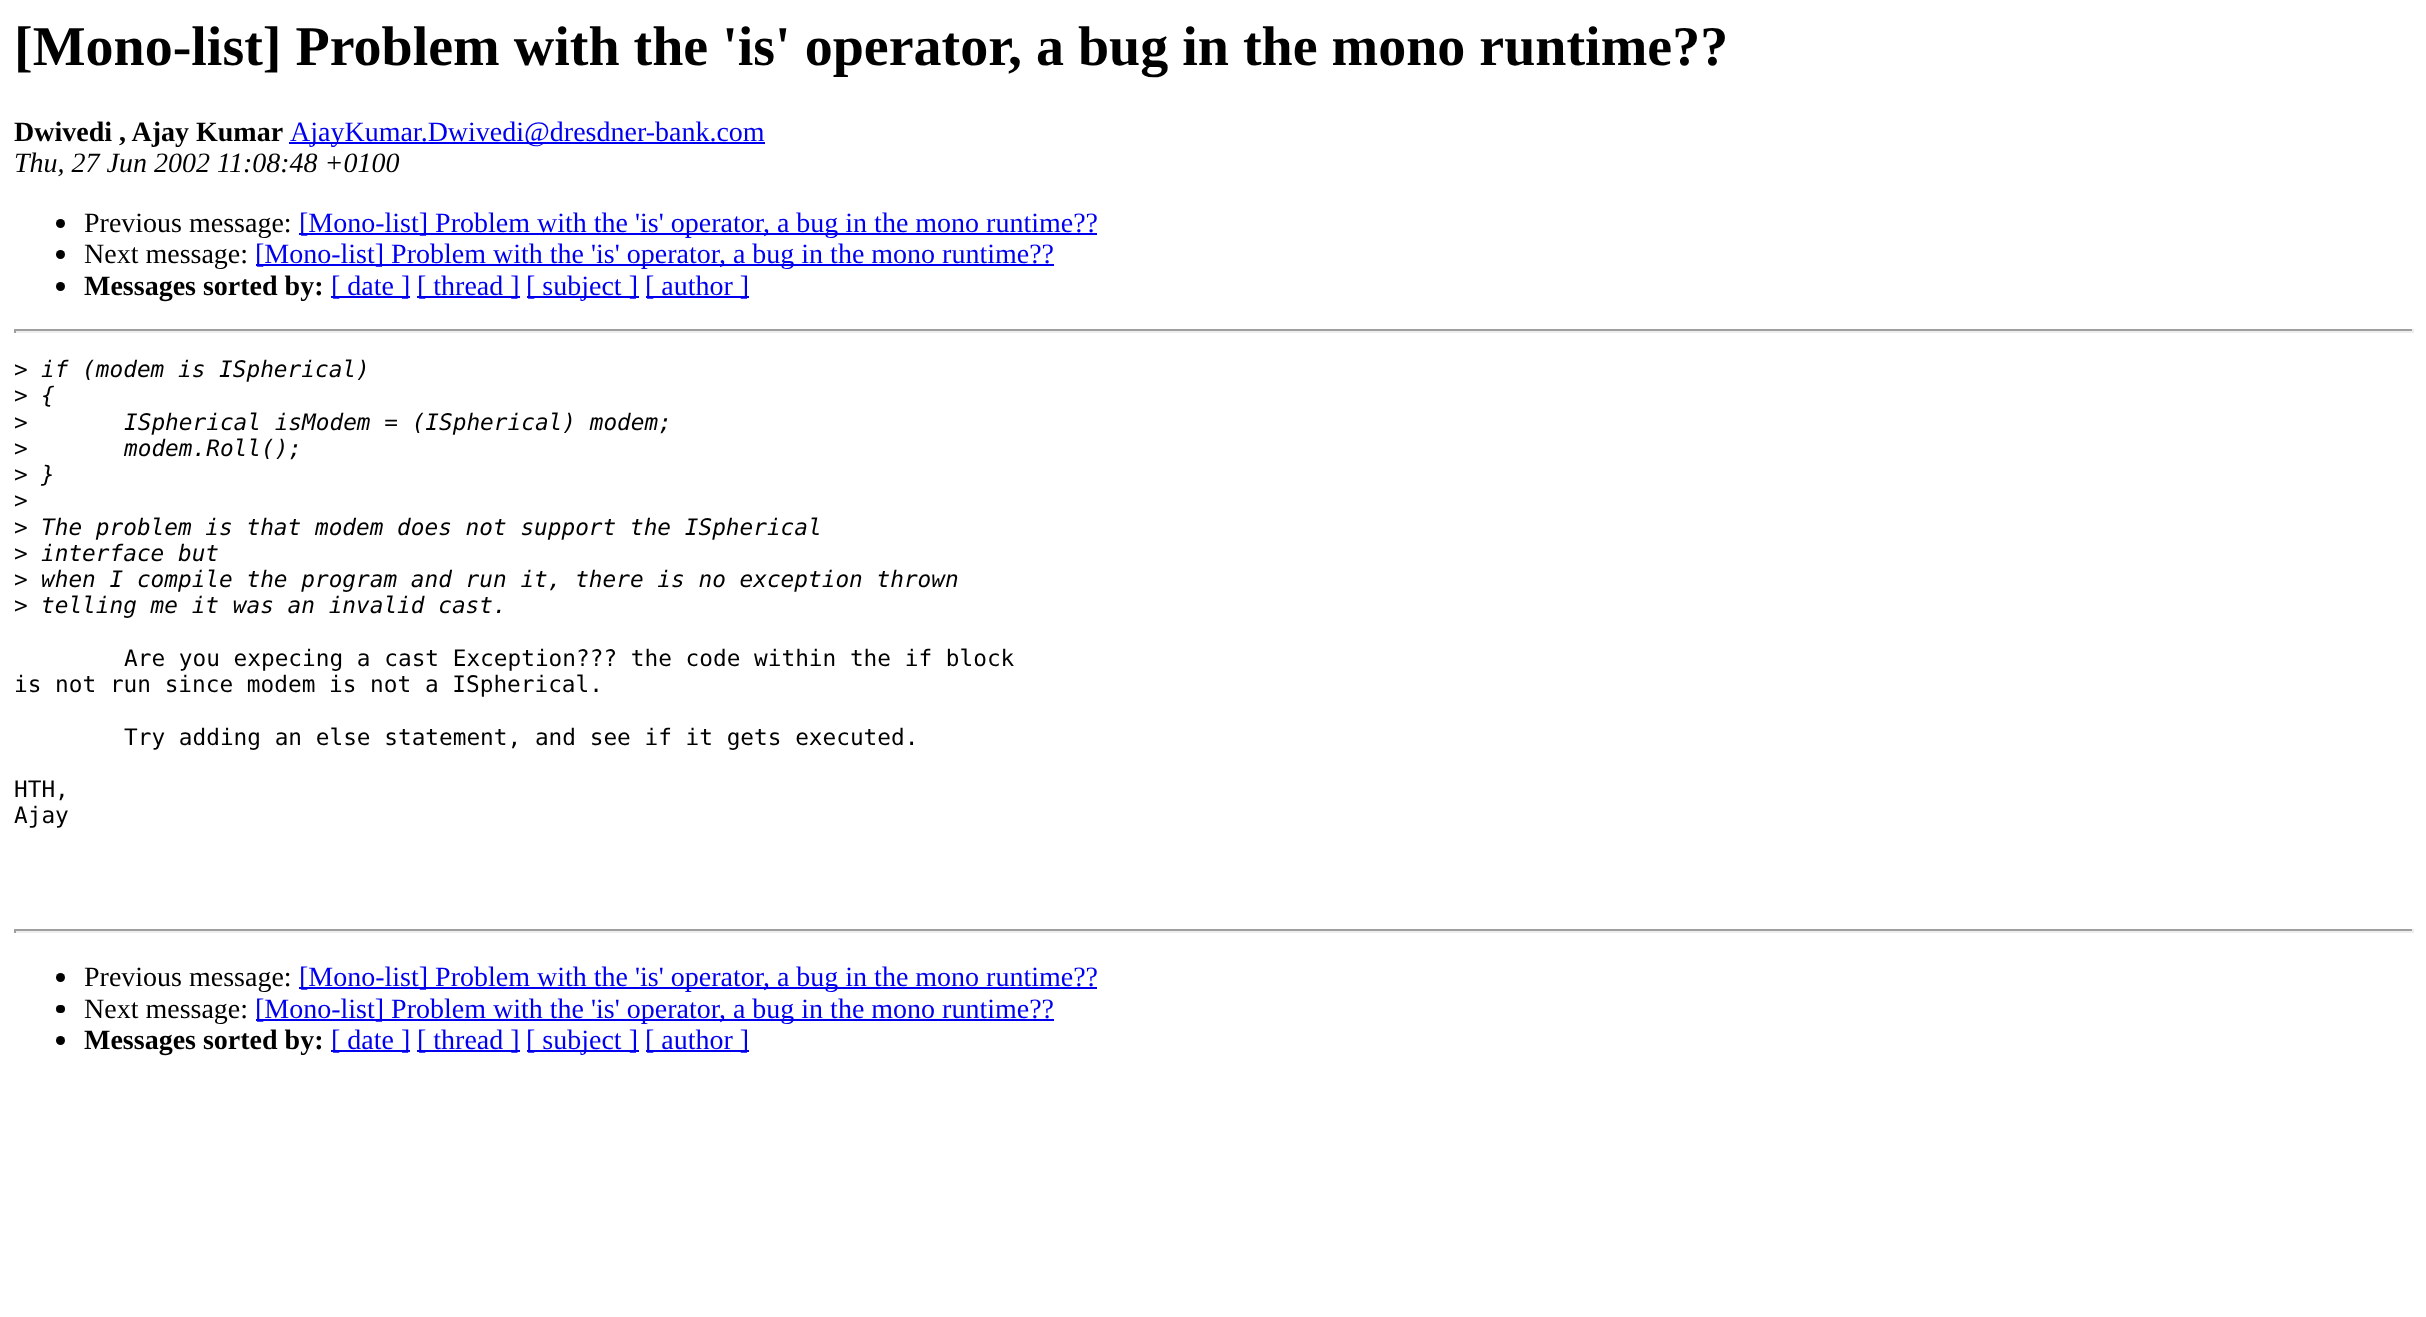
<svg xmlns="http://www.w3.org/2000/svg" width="2426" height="1317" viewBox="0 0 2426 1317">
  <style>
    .t1 { font: bold 56px Liberation Serif; fill: #000; }
    .t2 { font: bold 28px Liberation Serif; fill: #000; }
    .t3 { font: 28px Liberation Serif; fill: #00e; }
    .t4 { font: italic 28px Liberation Serif; fill: #000; }
    .t5 { font: 28px Liberation Serif; fill: #000; }
    .t6 { font: 22.75px DejaVu Sans Mono; fill: #000; }
    .t7 { font: italic 22.75px DejaVu Sans Mono; fill: #000; }
  </style>
  <rect width="100%" height="100%" fill="#fff"/>
  <text x="14" y="65" class="t1">[Mono-list] Problem with the 'is' operator, a bug in the mono runtime??</text>
  <text x="14" y="141" class="t2">Dwivedi , Ajay Kumar</text>
  <rect x="289" y="142" width="476" height="2" fill="#00e"/>
  <text x="290" y="141" class="t3">AjayKumar.Dwivedi@dresdner-bank.com</text>
  <text x="14" y="172" class="t4">Thu, 27 Jun 2002 11:08:48 +0100</text>
  <circle cx="60.5" cy="223.5" r="4.5" fill="#000"/>
  <text x="84" y="232" class="t5">Previous message:</text>
  <rect x="299" y="233" width="798" height="2" fill="#00e"/>
  <text x="299" y="232" class="t3">[Mono-list] Problem with the 'is' operator, a bug in the mono runtime??</text>
  <circle cx="60.5" cy="254.5" r="4.5" fill="#000"/>
  <text x="84" y="263" class="t5">Next message:</text>
  <rect x="256" y="264" width="798" height="2" fill="#00e"/>
  <text x="255" y="263" class="t3">[Mono-list] Problem with the 'is' operator, a bug in the mono runtime??</text>
  <circle cx="60.5" cy="286.5" r="4.5" fill="#000"/>
  <text x="84" y="295" class="t2">Messages sorted by:</text>
  <rect x="331" y="296" width="79" height="2" fill="#00e"/>
  <text x="331" y="295" class="t3">[ date ]</text>
  <rect x="417" y="296" width="103" height="2" fill="#00e"/>
  <text x="417" y="295" class="t3">[ thread ]</text>
  <rect x="527" y="296" width="112" height="2" fill="#00e"/>
  <text x="526" y="295" class="t3">[ subject ]</text>
  <rect x="646" y="296" width="103" height="2" fill="#00e"/>
  <text x="645" y="295" class="t3">[ author ]</text>
  <rect x="14" y="329" width="2399" height="2" fill="#9f9f9f"/>
  <rect x="2412" y="329" width="2" height="4" fill="#eee"/>
  <rect x="14" y="331" width="2399" height="2" fill="#eee"/>
  <rect x="14" y="329" width="2" height="4" fill="#9f9f9f"/>
  <text x="14" y="377" class="t6">&gt;</text>
  <text x="41" y="377" class="t7">if (modem is ISpherical)</text>
  <text x="14" y="403" class="t6">&gt;</text>
  <text x="41" y="403" class="t7">{</text>
  <text x="14" y="430" class="t6">&gt;</text>
  <text x="124" y="430" class="t7">ISpherical isModem = (ISpherical) modem;</text>
  <text x="14" y="456" class="t6">&gt;</text>
  <text x="124" y="456" class="t7">modem.Roll();</text>
  <text x="14" y="482" class="t6">&gt;</text>
  <text x="41" y="482" class="t7">}</text>
  <text x="14" y="508" class="t6">&gt;</text>
  <text x="14" y="535" class="t6">&gt;</text>
  <text x="41" y="535" class="t7">The problem is that modem does not support the ISpherical</text>
  <text x="14" y="561" class="t6">&gt;</text>
  <text x="41" y="561" class="t7">interface but</text>
  <text x="14" y="587" class="t6">&gt;</text>
  <text x="41" y="587" class="t7">when I compile the program and run it, there is no exception thrown</text>
  <text x="14" y="613" class="t6">&gt;</text>
  <text x="41" y="613" class="t7">telling me it was an invalid cast.</text>
  <text x="124" y="666" class="t6">Are you expecing a cast Exception??? the code within the if block</text>
  <text x="14" y="692" class="t6">is not run since modem is not a ISpherical.</text>
  <text x="124" y="745" class="t6">Try adding an else statement, and see if it gets executed.</text>
  <text x="14" y="797" class="t6">HTH,</text>
  <text x="14" y="823" class="t6">Ajay</text>
  <rect x="14" y="929" width="2399" height="2" fill="#9f9f9f"/>
  <rect x="2412" y="929" width="2" height="4" fill="#eee"/>
  <rect x="14" y="931" width="2399" height="2" fill="#eee"/>
  <rect x="14" y="929" width="2" height="4" fill="#9f9f9f"/>
  <circle cx="60.5" cy="977.5" r="4.5" fill="#000"/>
  <text x="84" y="986" class="t5">Previous message:</text>
  <rect x="299" y="987" width="798" height="2" fill="#00e"/>
  <text x="299" y="986" class="t3">[Mono-list] Problem with the 'is' operator, a bug in the mono runtime??</text>
  <rect x="56" y="1005" width="9" height="8" rx="4" fill="#000"/>
  <text x="84" y="1018" class="t5">Next message:</text>
  <rect x="256" y="1019" width="798" height="2" fill="#00e"/>
  <text x="255" y="1018" class="t3">[Mono-list] Problem with the 'is' operator, a bug in the mono runtime??</text>
  <circle cx="60.5" cy="1040.5" r="4.5" fill="#000"/>
  <text x="84" y="1049" class="t2">Messages sorted by:</text>
  <rect x="331" y="1050" width="79" height="2" fill="#00e"/>
  <text x="331" y="1049" class="t3">[ date ]</text>
  <rect x="417" y="1050" width="103" height="2" fill="#00e"/>
  <text x="417" y="1049" class="t3">[ thread ]</text>
  <rect x="527" y="1050" width="112" height="2" fill="#00e"/>
  <text x="526" y="1049" class="t3">[ subject ]</text>
  <rect x="646" y="1050" width="103" height="2" fill="#00e"/>
  <text x="645" y="1049" class="t3">[ author ]</text>
</svg>
